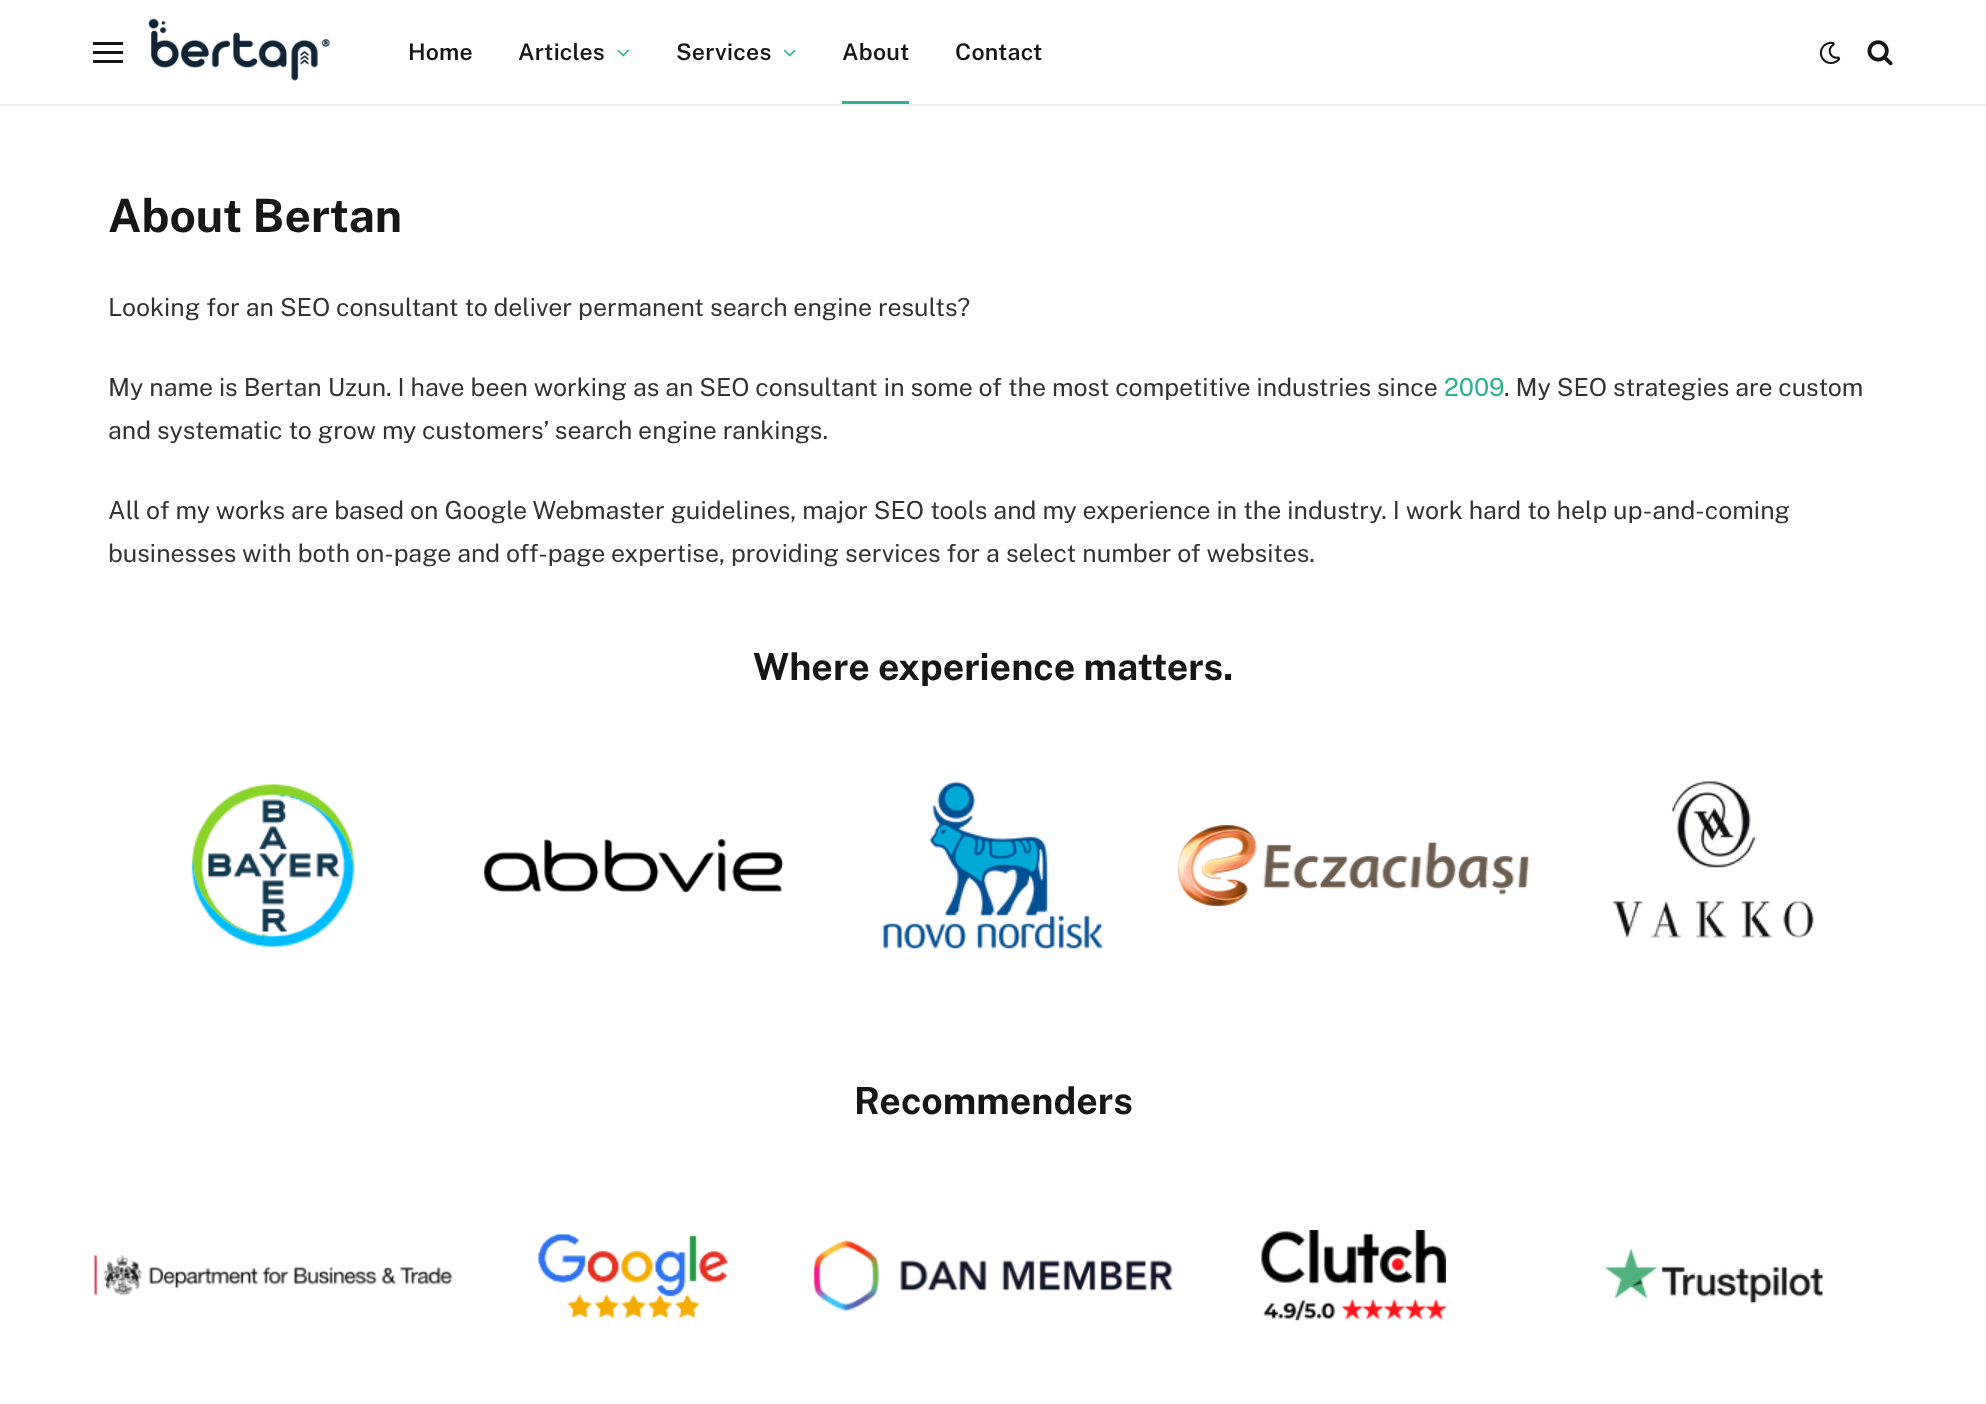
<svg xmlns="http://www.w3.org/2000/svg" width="1986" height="1404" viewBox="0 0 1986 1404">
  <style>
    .t1 { font: 600 23px Public Sans; letter-spacing: 0.25px; fill: #161616; }
    .t2 { font: bold 46px Public Sans; fill: #161616; }
    .t3 { font: 24.9px Public Sans; fill: #333; }
    .t4 { font: 24.9px Public Sans; fill: #2ab391; }
    .t5 { font: bold 37.4px Public Sans; fill: #161616; }
  </style>
  <rect width="100%" height="100%" fill="#fff"/>
  <rect x="0" y="104" width="1986" height="2" fill="#efefef"/>
  <rect x="93" y="60" width="30" height="3" fill="#161616"/>
  <rect x="93" y="42" width="30" height="3" fill="#161616"/>
  <rect x="93" y="51" width="30" height="3" fill="#161616"/>
  <image x="148" y="18" width="183" height="63" href="images/1.png"/>
  <text x="408" y="60" class="t1">Home</text>
  <text x="518" y="60" class="t1">Articles</text>
  <image x="617" y="49" width="13" height="8" href="images/2.png"/>
  <text x="676" y="60" class="t1">Services</text>
  <image x="783" y="49" width="13" height="8" href="images/3.png"/>
  <text x="842" y="60" class="t1">About</text>
  <rect x="842" y="101" width="67" height="3" fill="#2ab391"/>
  <text x="955" y="60" class="t1">Contact</text>
  <image x="1819" y="41" width="22" height="24" href="images/4.png"/>
  <image x="1867" y="40" width="26" height="26" href="images/5.png"/>
  <text x="108" y="232" class="t2">About Bertan</text>
  <text x="108" y="316" class="t3">Looking for an SEO consultant to deliver permanent search engine results?</text>
  <text x="108" y="396" class="t3">My name is Bertan Uzun. I have been working as an SEO consultant in some of the most competitive industries since</text>
  <text x="1444" y="396" class="t4">2009</text>
  <text x="1504" y="396" class="t3">. My SEO strategies are custom</text>
  <text x="108" y="439" class="t3">and systematic to grow my customers’ search engine rankings.</text>
  <text x="108" y="519" class="t3">All of my works are based on Google Webmaster guidelines, major SEO tools and my experience in the industry. I work hard to help up-and-coming</text>
  <text x="108" y="562" class="t3">businesses with both on-page and off-page expertise, providing services for a select number of websites.</text>
  <text x="753" y="680" class="t5">Where experience matters.</text>
  <image x="191" y="784" width="164" height="163" href="images/6.png"/>
  <image x="483" y="838" width="301" height="56" href="images/7.png"/>
  <image x="883" y="781" width="220" height="169" href="images/8.png"/>
  <image x="1177" y="825" width="353" height="82" href="images/9.png"/>
  <image x="1612" y="781" width="202" height="157" href="images/10.png"/>
  <text x="854" y="1114" class="t5">Recommenders</text>
  <image x="94" y="1255" width="359" height="41" href="images/11.png"/>
  <image x="538" y="1233" width="190" height="86" href="images/12.png"/>
  <image x="813" y="1240" width="360" height="71" href="images/13.png"/>
  <image x="1261" y="1230" width="185" height="91" href="images/14.png"/>
  <image x="1604" y="1248" width="219" height="56" href="images/15.png"/>
</svg>
